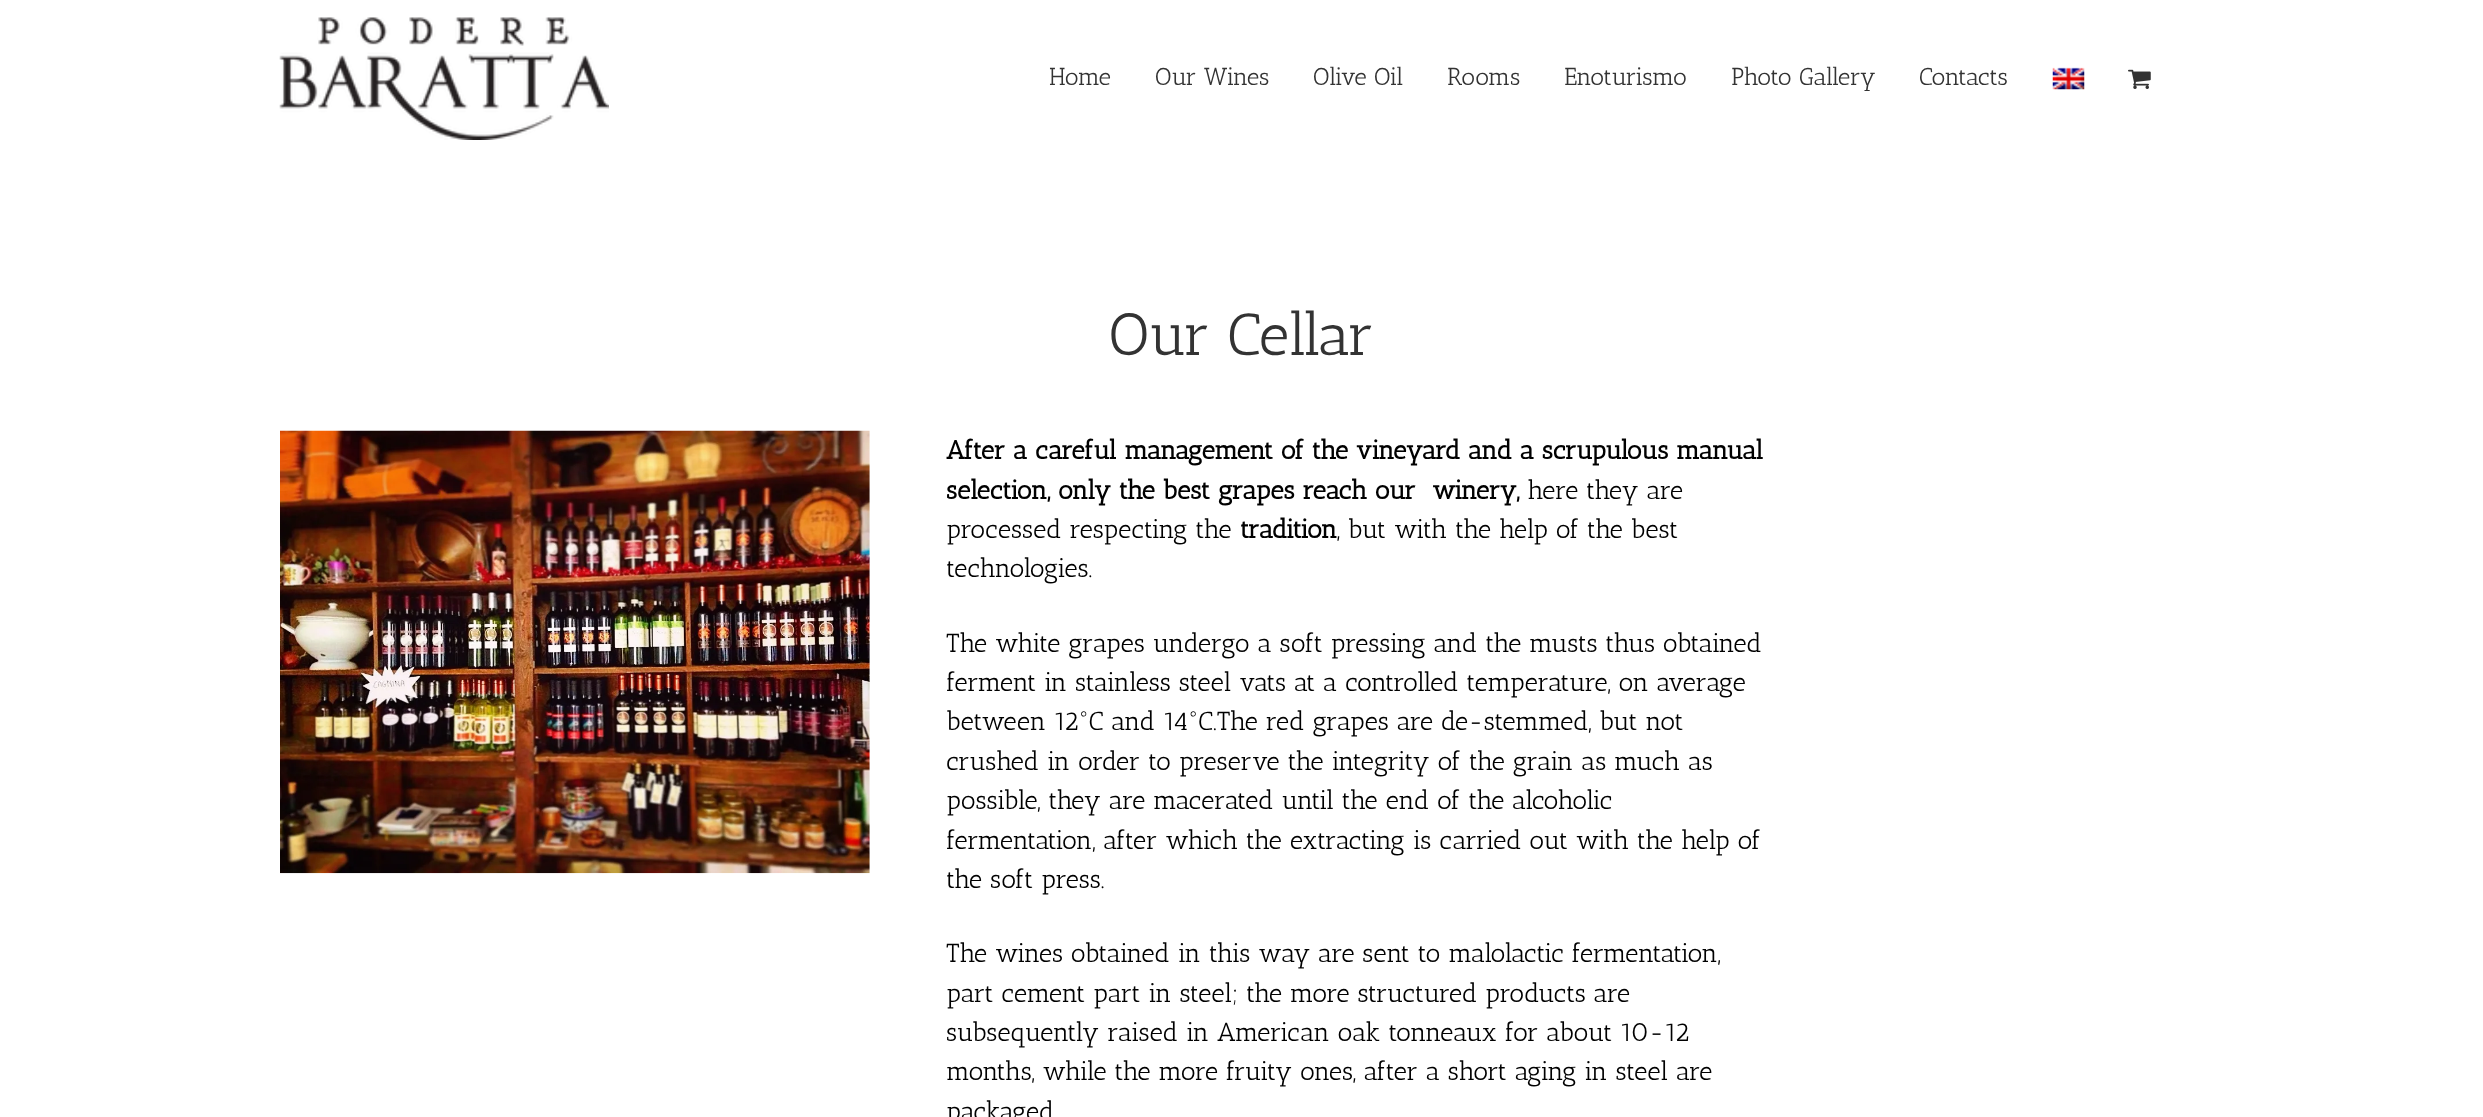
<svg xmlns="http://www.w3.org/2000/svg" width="2483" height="1117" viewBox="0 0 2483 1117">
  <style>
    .t1 { font: 24.5px Antic Slab; fill: #333; }
    .t2 { font: 59.5px Antic Slab; fill: #333; }
    .t3 { font: bold 26.25px Antic Slab; fill: #000; }
    .t4 { font: 26.25px Antic Slab; fill: #000; }
  </style>
  <rect width="100%" height="100%" fill="#fff"/>
  <image x="279" y="17" width="330" height="123" href="images/1.png"/>
  <text x="1049" y="85" class="t1">Home</text>
  <text x="1155" y="85" class="t1">Our Wines</text>
  <text x="1313" y="85" class="t1">Olive Oil</text>
  <text x="1447" y="85" class="t1">Rooms</text>
  <text x="1564" y="85" class="t1">Enoturismo</text>
  <text x="1731" y="85" class="t1">Photo Gallery</text>
  <text x="1919" y="85" class="t1">Contacts</text>
  <image x="2052" y="67" width="33" height="23" href="images/2.png"/>
  <image x="2128" y="69" width="23" height="20" href="images/3.png"/>
  <text x="1109" y="355" class="t2">Our Cellar</text>
  <image x="280" y="430" width="590" height="444" href="images/4.png"/>
  <text x="946" y="459" class="t3">After a careful management of the vineyard and a scrupulous manual</text>
  <text x="946" y="499" class="t3">selection, only the best grapes reach our</text>
  <text x="1432" y="499" class="t3">winery,</text>
  <text x="1527" y="499" class="t4">here they are</text>
  <text x="946" y="538" class="t4">processed respecting the</text>
  <text x="1240" y="538" class="t3">tradition</text>
  <text x="1337" y="538" class="t4">, but with the help of the best</text>
  <text x="946" y="577" class="t4">technologies.</text>
  <text x="946" y="652" class="t4">The white grapes undergo a soft pressing and the musts thus obtained</text>
  <text x="946" y="691" class="t4">ferment in stainless steel vats at a controlled temperature, on average</text>
  <text x="946" y="730" class="t4">between 12°C and 14°C.The red grapes are de-stemmed, but not</text>
  <text x="946" y="770" class="t4">crushed in order to preserve the integrity of the grain as much as</text>
  <text x="946" y="809" class="t4">possible, they are macerated until the end of the alcoholic</text>
  <text x="946" y="849" class="t4">fermentation, after which the extracting is carried out with the help of</text>
  <text x="946" y="888" class="t4">the soft press.</text>
  <text x="946" y="962" class="t4">The wines obtained in this way are sent to malolactic fermentation,</text>
  <text x="946" y="1002" class="t4">part cement part in steel; the more structured products are</text>
  <text x="946" y="1041" class="t4">subsequently raised in American oak tonneaux for about 10-12</text>
  <text x="946" y="1080" class="t4">months, while the more fruity ones, after a short aging in steel are</text>
  <text x="946" y="1120" class="t4">packaged</text>
</svg>
